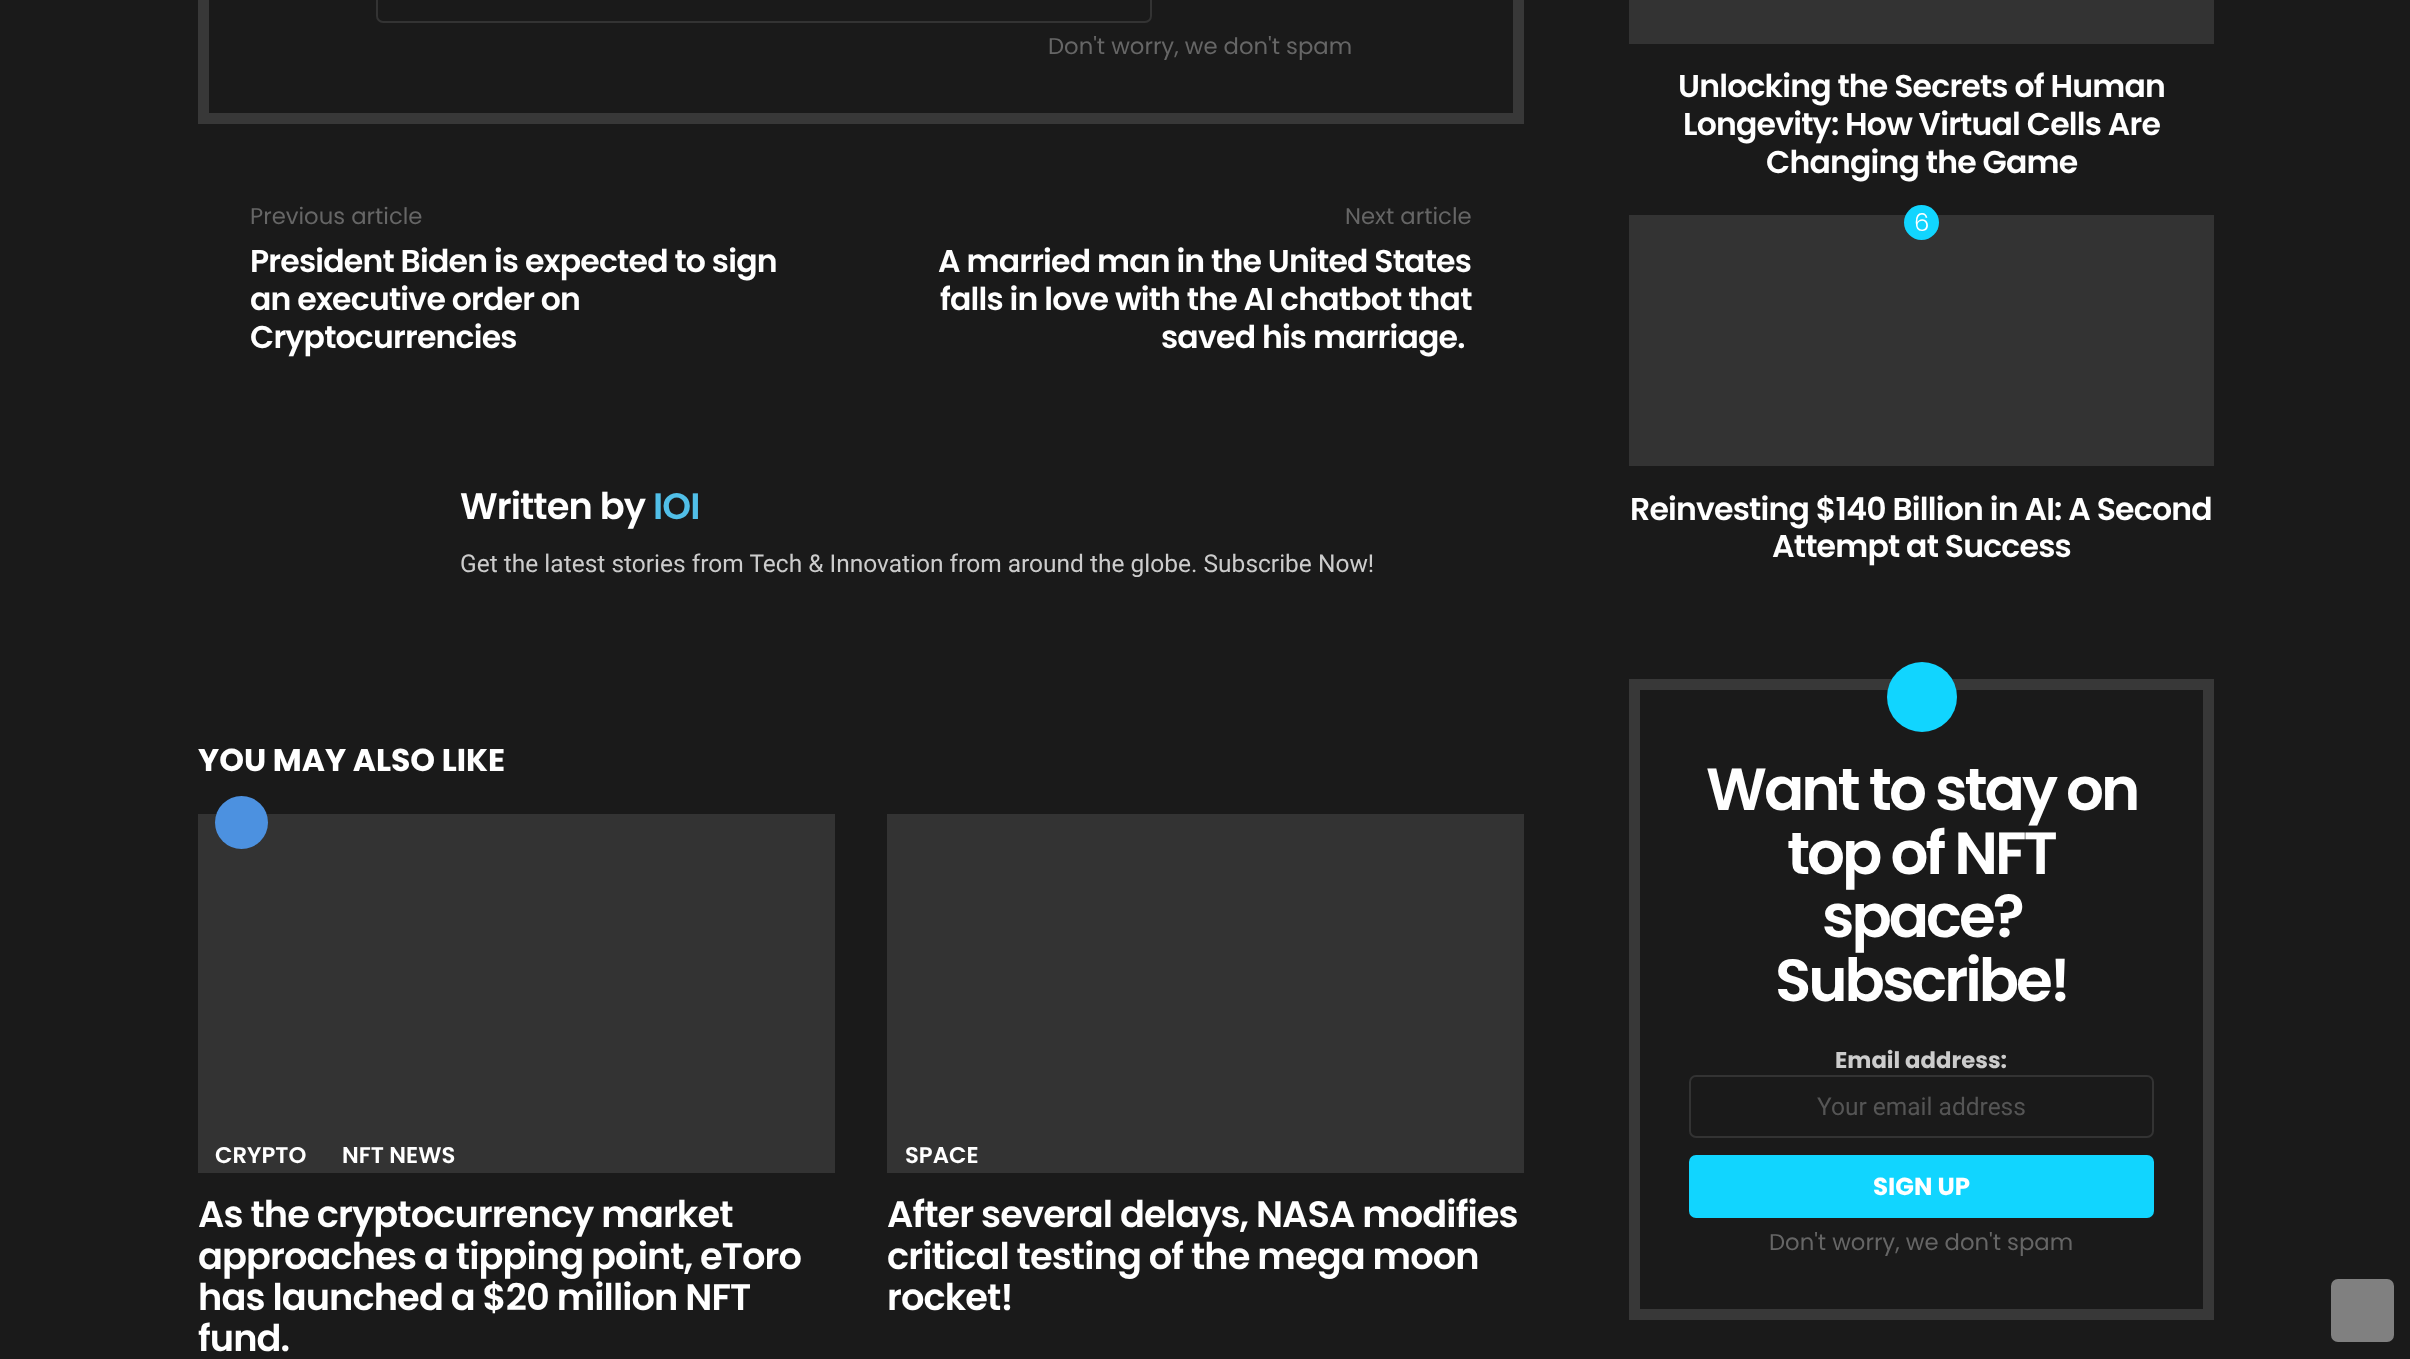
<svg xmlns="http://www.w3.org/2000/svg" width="2410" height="1359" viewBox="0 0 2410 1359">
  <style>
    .t1 { font: 22.75px Poppins; fill: #666; }
    .t2 { font: 600 31.5px Poppins; letter-spacing: -0.8px; fill: #fff; }
    .t3 { font: 600 36.75px Poppins; letter-spacing: -0.9px; fill: #fff; }
    .t4 { font: 600 36.75px Poppins; letter-spacing: -0.9px; fill: #51bfe8; }
    .t5 { font: 24.5px Roboto; fill: #ccc; }
    .t6 { font: bold 31.5px Poppins; fill: #fff; }
    .t7 { font: 600 22.75px Poppins; fill: #fff; }
    .t8 { font: 300 24.5px Poppins; fill: #fff; }
    .t9 { font: 600 59.5px Poppins; letter-spacing: -3px; fill: #fff; }
    .t10 { font: bold 22.75px Poppins; fill: #ccc; }
    .t11 { font: 24.5px Roboto; fill: #555; }
    .t12 { font: bold 24.5px Poppins; fill: #fff; }
  </style>
  <rect width="100%" height="100%" fill="#1a1a1a"/>
  <rect x="203.5" y="-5.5" width="1315" height="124" fill="none" stroke="#383838" stroke-width="11"/>
  <rect x="377" y="-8" width="774" height="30" rx="6" fill="none" stroke="#333" stroke-width="2"/>
  <text x="1048" y="54" class="t1">Don't worry, we don't spam</text>
  <text x="250" y="224" class="t1">Previous article</text>
  <text x="250" y="272" class="t2">President Biden is expected to sign</text>
  <text x="250" y="310" class="t2">an executive order on</text>
  <text x="250" y="348" class="t2">Cryptocurrencies</text>
  <text x="1345" y="224" class="t1">Next article</text>
  <text x="938" y="272" class="t2">A married man in the United States</text>
  <text x="940" y="310" class="t2">falls in love with the AI chatbot that</text>
  <text x="1161" y="348" class="t2">saved his marriage. </text>
  <text x="460" y="519" class="t3">Written by</text>
  <text x="653" y="519" class="t4">IOI</text>
  <text x="460" y="572" class="t5">Get the latest stories from Tech &amp; Innovation from around the globe. Subscribe Now!</text>
  <text x="198" y="771" class="t6">YOU MAY ALSO LIKE</text>
  <rect x="198" y="814" width="637" height="359" fill="#333"/>
  <circle cx="241.5" cy="822.5" r="26.5" fill="#4c91e0"/>
  <text x="215" y="1163" class="t7">CRYPTO</text>
  <text x="342" y="1163" class="t7">NFT NEWS</text>
  <text x="198" y="1227" class="t3">As the cryptocurrency market</text>
  <text x="198" y="1269" class="t3">approaches a tipping point, eToro</text>
  <text x="198" y="1310" class="t3">has launched a $20 million NFT</text>
  <text x="198" y="1351" class="t3">fund.</text>
  <rect x="887" y="814" width="637" height="359" fill="#333"/>
  <text x="905" y="1163" class="t7">SPACE</text>
  <text x="887" y="1227" class="t3">After several delays, NASA modifies</text>
  <text x="887" y="1269" class="t3">critical testing of the mega moon</text>
  <text x="887" y="1310" class="t3">rocket!</text>
  <rect x="1629" y="0" width="585" height="44" fill="#333"/>
  <text x="1678" y="97" class="t2">Unlocking the Secrets of Human</text>
  <text x="1683" y="135" class="t2">Longevity: How Virtual Cells Are</text>
  <text x="1766" y="173" class="t2">Changing the Game</text>
  <rect x="1629" y="215" width="585" height="251" fill="#333"/>
  <circle cx="1921.5" cy="222.5" r="17.5" fill="#11d5ff"/>
  <text x="1914" y="231" class="t8">6</text>
  <text x="1630" y="520" class="t2">Reinvesting $140 Billion in AI: A Second</text>
  <text x="1772" y="557" class="t2">Attempt at Success</text>
  <rect x="1634.5" y="684.5" width="574" height="630" fill="none" stroke="#383838" stroke-width="11"/>
  <circle cx="1922" cy="697" r="35" fill="#11d5ff"/>
  <text x="1706" y="810" class="t9">Want to stay on</text>
  <text x="1787" y="874" class="t9">top of NFT</text>
  <text x="1822" y="937" class="t9">space?</text>
  <text x="1775" y="1001" class="t9">Subscribe!</text>
  <text x="1835" y="1068" class="t10">Email address:</text>
  <rect x="1690" y="1076" width="463" height="61" rx="6" fill="none" stroke="#333" stroke-width="2"/>
  <text x="1817" y="1115" class="t11">Your email address</text>
  <rect x="1691" y="1157" width="461" height="59" rx="5" fill="#11d5ff" stroke="#11d5ff" stroke-width="4"/>
  <text x="1873" y="1195" class="t12">SIGN UP</text>
  <text x="1769" y="1250" class="t1">Don't worry, we don't spam</text>
  <rect x="2331" y="1279" width="63" height="63" rx="7" fill="#808080"/>
</svg>
